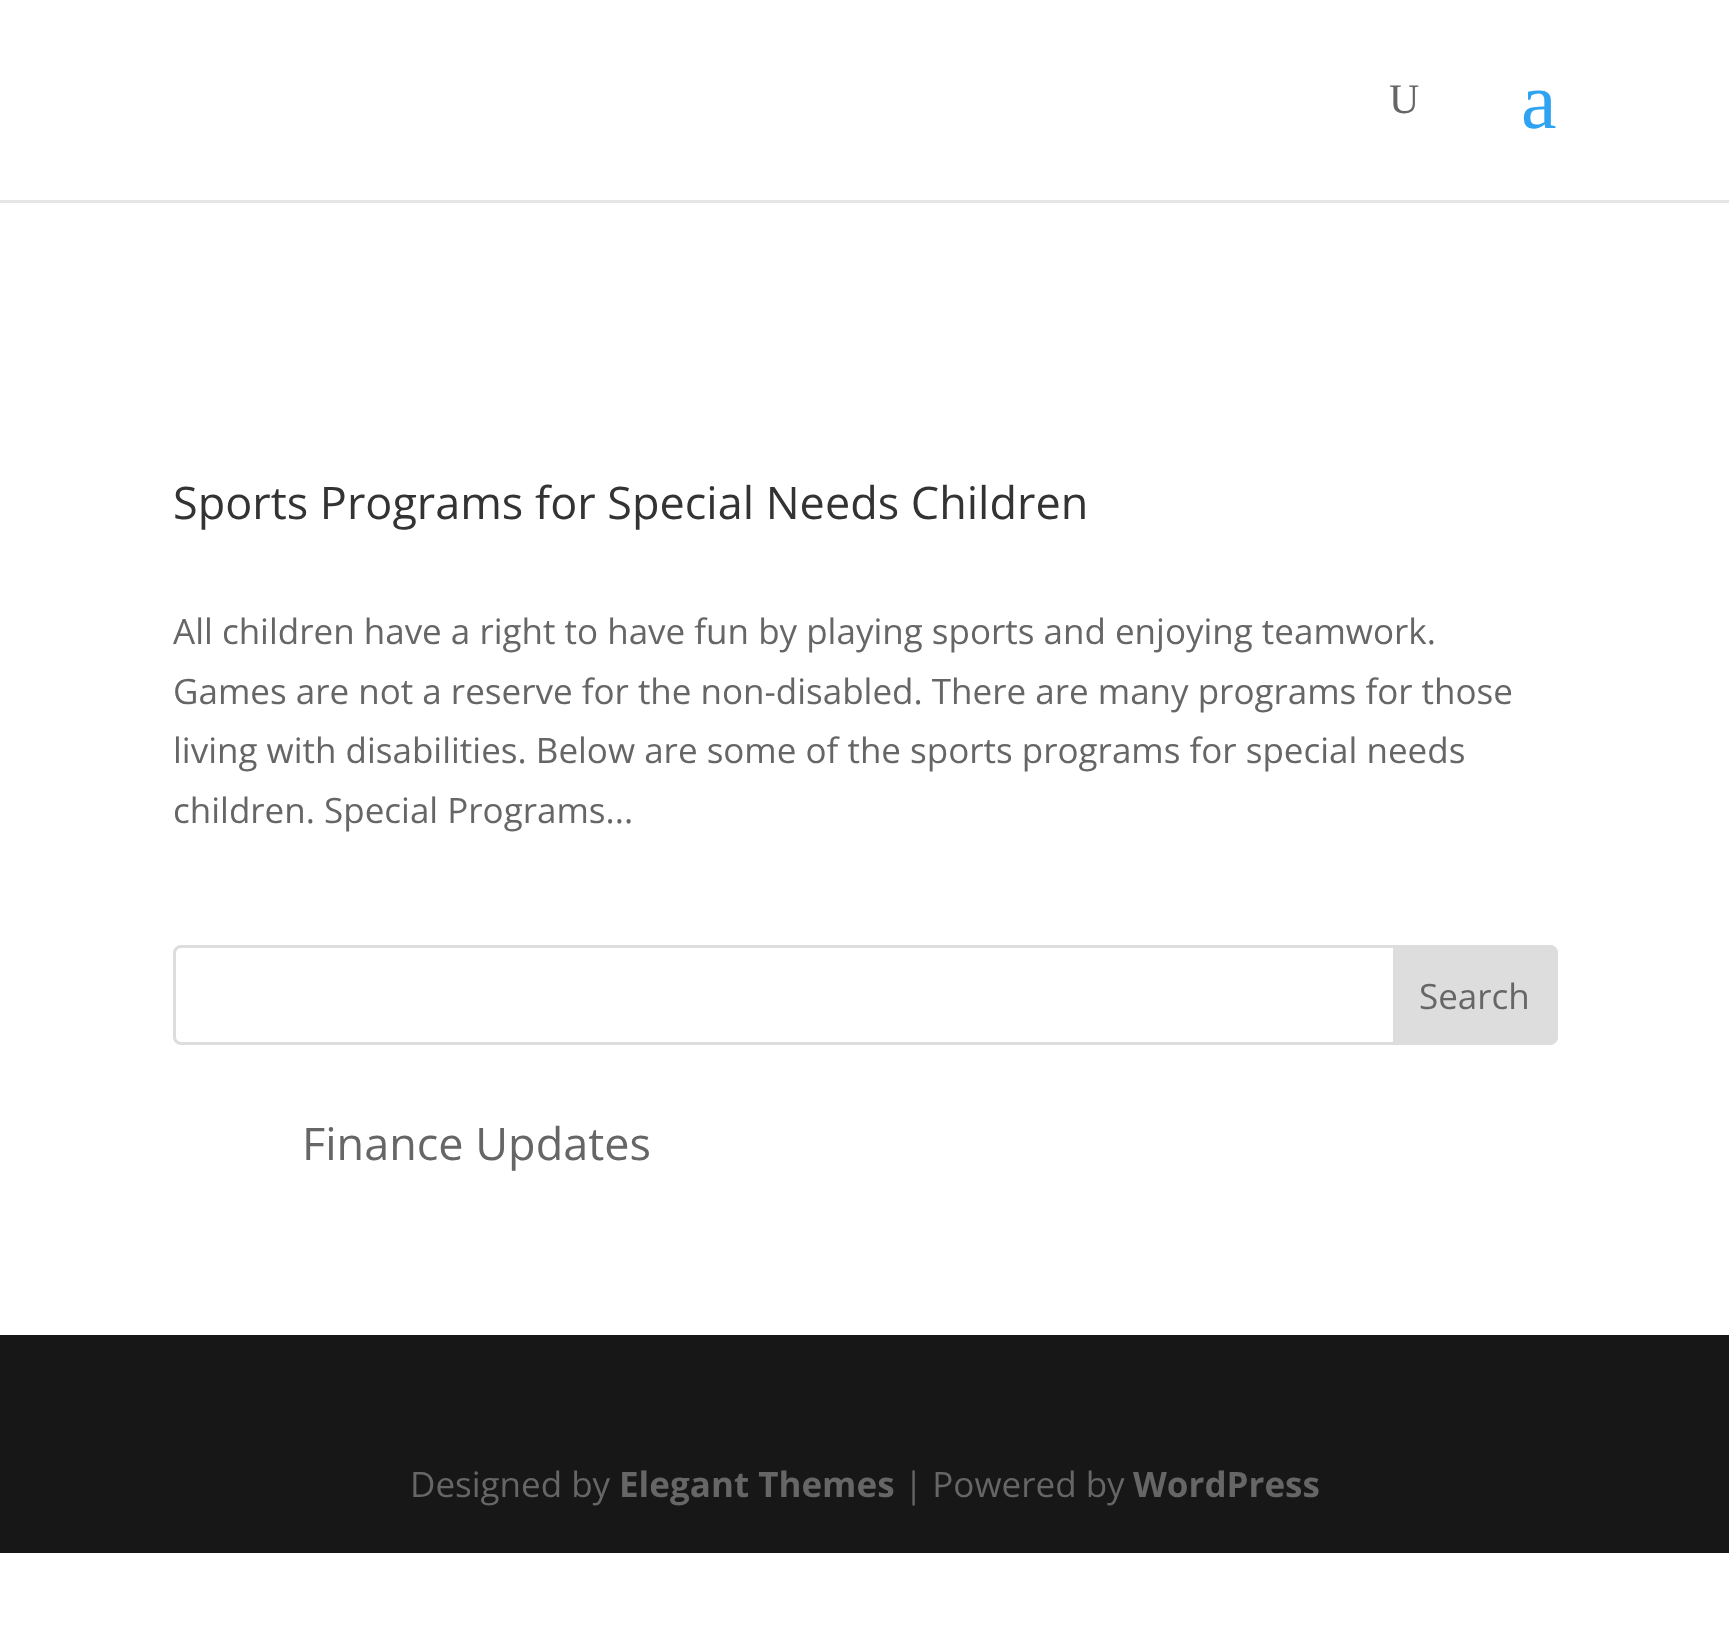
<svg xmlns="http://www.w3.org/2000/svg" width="1729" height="1644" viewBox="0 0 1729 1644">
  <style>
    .t1 { font: 42px Liberation Serif; fill: #666; }
    .t2 { font: 80px Liberation Serif; fill: #2ea3f2; }
    .t3 { font: 45px Open Sans; fill: #333; }
    .t4 { font: 35px Open Sans; fill: #666; }
    .t5 { font: 45px Open Sans; fill: #666; }
    .t6 { font: bold 35px Open Sans; fill: #666; }
  </style>
  <rect width="100%" height="100%" fill="#fff"/>
  <rect x="0" y="200" width="1729" height="3" fill="#e6e6e6"/>
  <text x="1389" y="113" class="t1">U</text>
  <text x="1521" y="128" class="t2">a</text>
  <text x="173" y="519" class="t3">Sports Programs for Special Needs Children</text>
  <text x="173" y="644" class="t4">All children have a right to have fun by playing sports and enjoying teamwork.</text>
  <text x="173" y="704" class="t4">Games are not a reserve for the non-disabled. There are many programs for those</text>
  <text x="173" y="763" class="t4">living with disabilities. Below are some of the sports programs for special needs</text>
  <text x="173" y="823" class="t4">children. Special Programs...</text>
  <rect x="174.5" y="946.5" width="1382" height="97" rx="6.5" fill="none" stroke="#ddd" stroke-width="3"/>
  <path d="M1394.5 946.5H1550C1553.5 946.5 1556.5 949.5 1556.5 953V1037C1556.5 1040.5 1553.5 1043.5 1550 1043.5H1394.5Z" fill="#ddd" stroke="#ddd" stroke-width="3"/>
  <text x="1419" y="1009" class="t4">Search</text>
  <text x="302" y="1160" class="t5">Finance Updates</text>
  <rect x="0" y="1335" width="1729" height="218" fill="#171717"/>
  <text x="410" y="1497" class="t4">Designed by</text>
  <text x="619" y="1497" class="t6">Elegant Themes</text>
  <text x="904" y="1497" class="t4">| Powered by</text>
  <text x="1133" y="1497" class="t6">WordPress</text>
</svg>
